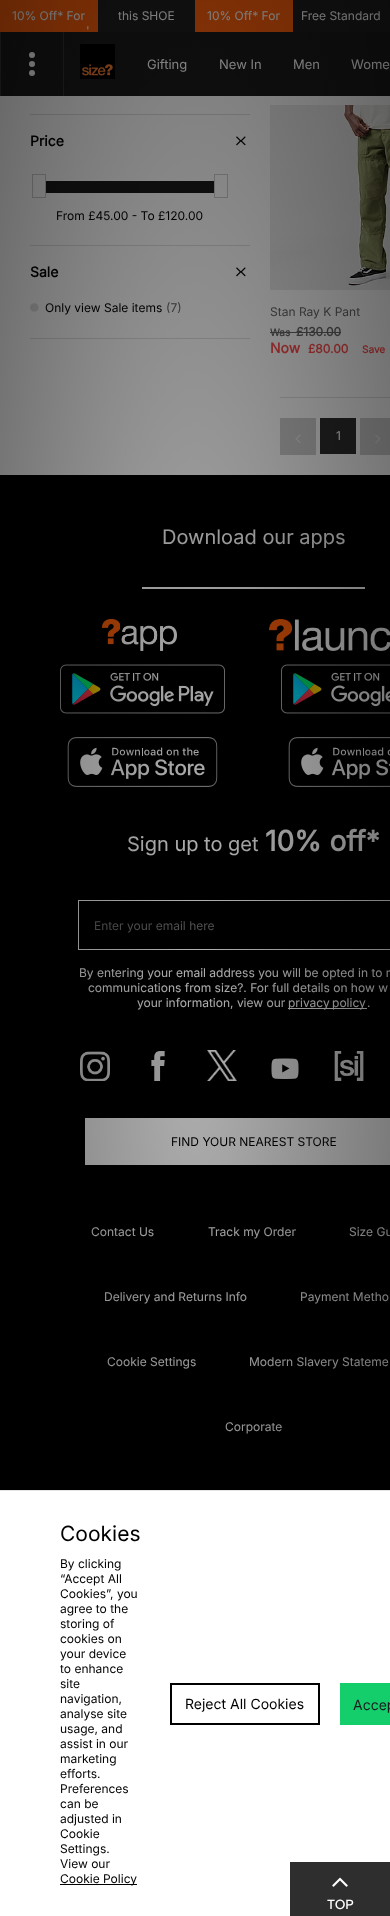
<svg xmlns="http://www.w3.org/2000/svg" width="390" height="1916" viewBox="0 0 390 1916">
  <style>
    .t1 { font: 12px Inter; fill: #fff; }
    .t2 { font: 13px Inter; fill: #fff; }
    .t3 { font: bold 14px Inter; fill: #000; }
    .t4 { font: 12px Inter; fill: #000; }
    .t5 { font: 12px Inter; fill: #666; }
    .t6 { font: bold 10px Inter; fill: #666; }
    .t7 { font: bold 12px Inter; fill: #666; }
    .t8 { font: bold 14px Inter; fill: #ff4c4c; }
    .t9 { font: bold 12px Inter; fill: #ff4c4c; }
    .t10 { font: bold 10px Inter; fill: #ff4c4c; }
    .t11 { font: 20px Inter; fill: #fff; }
    .t12 { font: bold 28px Inter; fill: #fff; }
    .t13 { font: 12px Inter; fill: #757575; }
    .t14 { font: 21px Inter; fill: #000; }
    .t15 { font: 14px Inter; fill: #000; }
    .t16 { font: 14px Inter; fill: #1b1c1e; }
    .t17 { font: 500 14px Proxima Nova; fill: #fff; }
  </style>
  <defs>
    <radialGradient id="g1" gradientUnits="userSpaceOnUse" cx="0" cy="0" r="1" gradientTransform="matrix(276 0 0 1355 195 958)"><stop offset="0" stop-color="#000" stop-opacity="0.3"/><stop offset="1" stop-color="#000" stop-opacity="0.6"/></radialGradient>
  </defs>
  <rect width="100%" height="100%" fill="#fff"/>
  <rect x="98" y="0" width="292" height="32" fill="#1f1f1f"/>
  <rect x="0" y="0" width="98" height="32" fill="#ff600b"/>
  <text x="12" y="20" class="t1">10% Off* For</text>
  <text x="86" y="35" class="t1">'</text>
  <text x="118" y="20" class="t1">this SHOE</text>
  <rect x="195" y="0" width="98" height="32" fill="#ff600b"/>
  <text x="207" y="20" class="t1">10% Off* For</text>
  <text x="301" y="20" class="t1">Free Standard</text>
  <rect x="1" y="32" width="389" height="64" fill="#1b1b1b"/>
  <rect x="63" y="32" width="1" height="64" fill="#333"/>
  <rect x="0" y="32" width="1" height="64" fill="#333"/>
  <circle cx="32" cy="73" r="3" fill="#fff"/>
  <circle cx="32" cy="64" r="3" fill="#fff"/>
  <circle cx="32" cy="55" r="3" fill="#fff"/>
  <image x="80" y="44" width="35" height="35" href="images/1.png"/>
  <text x="147" y="69" class="t2">Gifting</text>
  <text x="219" y="69" class="t2">New In</text>
  <text x="293" y="69" class="t2">Men</text>
  <text x="351" y="69" class="t2">Wome</text>
  <rect x="30" y="114" width="220" height="1" fill="#dfdfdf"/>
  <rect x="30" y="245" width="220" height="1" fill="#dfdfdf"/>
  <text x="30" y="146" class="t3">Price</text>
  <image x="236" y="136" width="6" height="10" href="images/2.png"/>
  <image x="240" y="136" width="6" height="10" href="images/3.png"/>
  <rect x="32.5" y="174.5" width="13" height="23" fill="none" stroke="#ccc"/>
  <rect x="46" y="181" width="168" height="12" fill="#1a1a1a"/>
  <rect x="214.5" y="174.5" width="13" height="23" fill="none" stroke="#ccc"/>
  <text x="56" y="220" class="t4">From £45.00 - To £120.00</text>
  <rect x="30" y="338" width="220" height="1" fill="#dfdfdf"/>
  <text x="30" y="277" class="t3">Sale</text>
  <image x="236" y="267" width="6" height="10" href="images/2.png"/>
  <image x="240" y="267" width="6" height="10" href="images/3.png"/>
  <image x="30" y="303" width="9" height="9" href="images/4.png"/>
  <text x="45" y="312" class="t4">Only view Sale items</text>
  <text x="166" y="312" class="t5">(7)</text>
  <image x="270" y="105" width="120" height="185" href="images/5.png"/>
  <text x="270" y="316" class="t5">Stan Ray K Pant</text>
  <text x="270" y="336" class="t6">Was</text>
  <rect x="270" y="332" width="26" height="1" fill="#666"/>
  <text x="296" y="336" class="t7">£130.00</text>
  <rect x="296" y="332" width="45" height="1" fill="#666"/>
  <text x="270" y="353" class="t8">Now</text>
  <text x="308" y="353" class="t9">£80.00</text>
  <text x="362" y="353" class="t10">Save</text>
  <rect x="280" y="397" width="110" height="1" fill="#dfdfdf"/>
  <rect x="280" y="418" width="36" height="37" fill="#ccc"/>
  <image x="295" y="434" width="6" height="9" href="images/6.png"/>
  <rect x="320" y="418" width="36" height="36" fill="#2e2e2e"/>
  <text x="336" y="440" class="t1">1</text>
  <rect x="360" y="418" width="30" height="37" fill="#ccc"/>
  <image x="375" y="434" width="5" height="9" href="images/7.png"/>
  <rect x="0" y="475" width="390" height="1015" fill="#000"/>
  <text x="162" y="544" class="t11">Download our apps</text>
  <rect x="142" y="587" width="223" height="2" fill="#fff"/>
  <image x="102" y="619" width="75" height="32" href="images/8.png"/>
  <image x="60" y="664" width="165" height="50" href="images/9.png"/>
  <image x="67" y="737" width="151" height="50" href="images/10.png"/>
  <image x="269" y="619" width="121" height="32" href="images/11.png"/>
  <image x="281" y="664" width="109" height="50" href="images/12.png"/>
  <image x="288" y="737" width="102" height="50" href="images/13.png"/>
  <text x="127" y="851" class="t11">Sign up to get</text>
  <text x="265" y="851" class="t12">10% off*</text>
  <rect x="78.5" y="900.5" width="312" height="49" fill="none" stroke="#fff"/>
  <text x="94" y="930" class="t13">Enter your email here</text>
  <text x="79" y="977" class="t1">By entering your email address you will be opted in to r</text>
  <text x="88" y="992" class="t1">communications from size?. For full details on how w</text>
  <text x="137" y="1007" class="t1">your information, view our</text>
  <rect x="288" y="1008" width="79" height="1" fill="#fff"/>
  <text x="288" y="1007" word-spacing="-1" class="t1">privacy policy</text>
  <text x="367" y="1007" class="t1">.</text>
  <image x="80" y="1051" width="30" height="30" href="images/14.png"/>
  <image x="151" y="1051" width="14" height="30" href="images/15.png"/>
  <image x="207" y="1050" width="30" height="31" href="images/16.png"/>
  <image x="271" y="1058" width="28" height="21" href="images/17.png"/>
  <image x="334" y="1051" width="30" height="30" href="images/18.png"/>
  <rect x="85" y="1118" width="305" height="47" fill="#fff"/>
  <text x="171" y="1146" class="t4">FIND YOUR NEAREST STORE</text>
  <text x="91" y="1236" class="t1">Contact Us</text>
  <text x="208" y="1236" class="t1">Track my Order</text>
  <text x="349" y="1236" class="t1">Size Gu</text>
  <text x="104" y="1301" class="t1">Delivery and Returns Info</text>
  <text x="300" y="1301" class="t1">Payment Metho</text>
  <text x="107" y="1366" class="t1">Cookie Settings</text>
  <text x="249" y="1366" class="t1">Modern Slavery Stateme</text>
  <text x="225" y="1431" class="t1">Corporate</text>
  <rect x="0" y="0" width="390" height="1434" fill="url(#g1)"/>
  <rect x="0" y="1490" width="390" height="1" fill="#e5e5e5"/>
  <text x="60" y="1541" class="t14">Cookies</text>
  <text x="60" y="1568" class="t4">By clicking</text>
  <text x="60" y="1583" class="t4">“Accept All</text>
  <text x="60" y="1598" class="t4">Cookies”, you</text>
  <text x="60" y="1613" class="t4">agree to the</text>
  <text x="60" y="1628" class="t4">storing of</text>
  <text x="60" y="1643" class="t4">cookies on</text>
  <text x="60" y="1658" class="t4">your device</text>
  <text x="60" y="1673" class="t4">to enhance</text>
  <text x="60" y="1688" class="t4">site</text>
  <text x="60" y="1703" class="t4">navigation,</text>
  <text x="60" y="1718" class="t4">analyse site</text>
  <text x="60" y="1733" class="t4">usage, and</text>
  <text x="60" y="1748" class="t4">assist in our</text>
  <text x="60" y="1763" class="t4">marketing</text>
  <text x="60" y="1778" class="t4">efforts.</text>
  <text x="60" y="1793" class="t4">Preferences</text>
  <text x="60" y="1808" class="t4">can be</text>
  <text x="60" y="1823" class="t4">adjusted in</text>
  <text x="60" y="1838" class="t4">Cookie</text>
  <text x="60" y="1853" class="t4">Settings.</text>
  <text x="60" y="1868" class="t4">View our</text>
  <rect x="60" y="1884" width="77" height="1" fill="#000"/>
  <text x="60" y="1883" class="t4">Cookie Policy</text>
  <rect x="171" y="1684" width="148" height="40" fill="none" stroke="#000" stroke-width="2"/>
  <text x="185" y="1709" class="t15">Reject All Cookies</text>
  <rect x="340" y="1683" width="50" height="42" fill="#13ce6b"/>
  <text x="353" y="1710" class="t16">Accep</text>
  <rect x="290" y="1862" width="100" height="54" fill="#2e2e2e"/>
  <image x="332" y="1877" width="16" height="10" href="images/19.png"/>
  <text x="327" y="1909" class="t17">TOP</text>
</svg>
